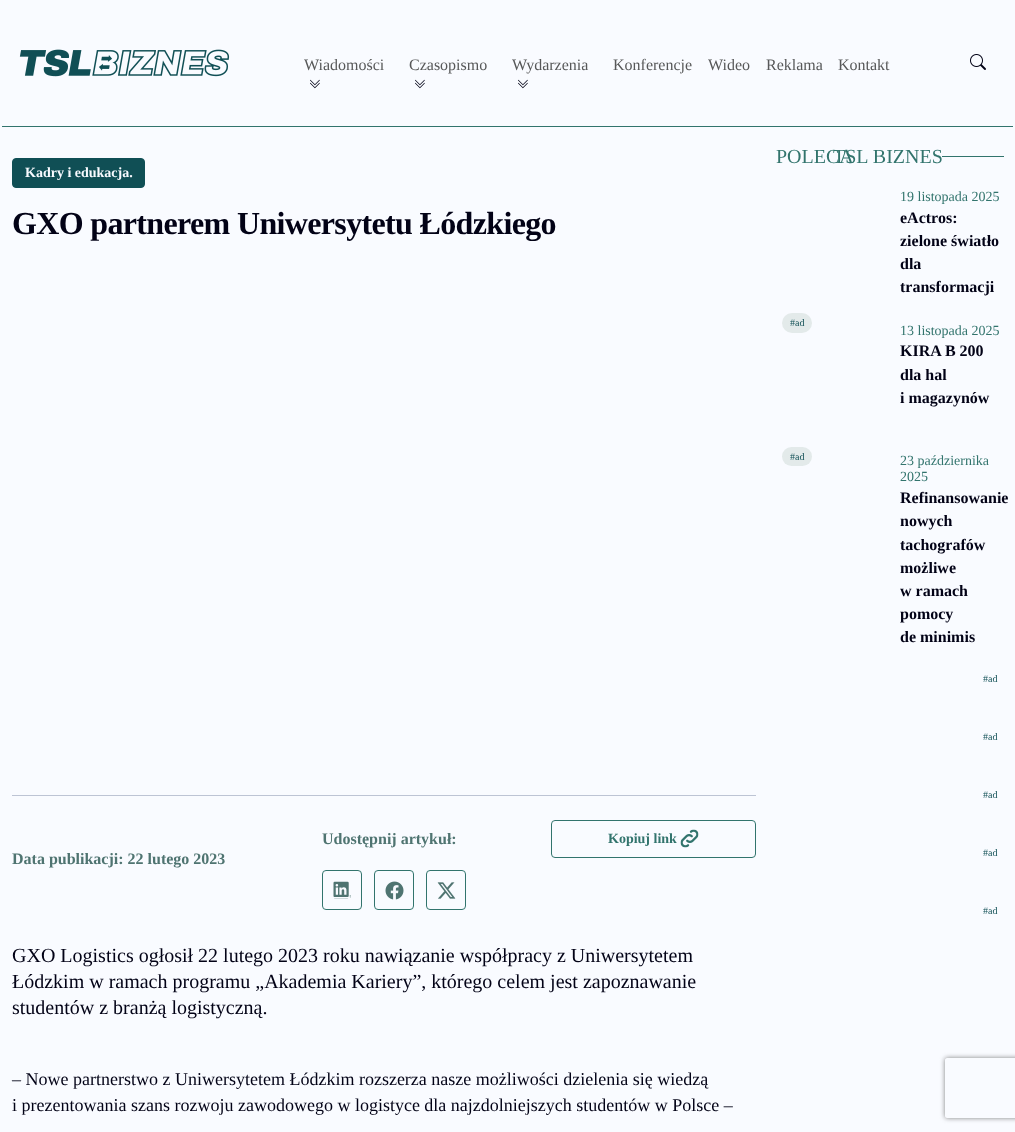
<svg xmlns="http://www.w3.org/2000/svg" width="1015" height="1132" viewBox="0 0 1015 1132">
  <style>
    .t1 { font: 16px Liberation Serif; fill: #575859; }
    .t2 { font: bold 14px Liberation Serif; fill: #f9fbff; }
    .t3 { font: bold 32px Liberation Serif; letter-spacing: -0.65px; fill: #020216; }
    .t4 { font: bold 16px Liberation Serif; fill: #4f7471; }
    .t5 { font: bold 14px Liberation Serif; fill: #32746d; }
    .t6 { font: 20px Liberation Serif; fill: #020216; }
    .t7 { font: 18px Liberation Serif; fill: #020216; }
    .t8 { font: 20px Liberation Serif; fill: #32746d; }
    .t9 { font: 14px Liberation Serif; fill: #32746d; }
    .t10 { font: bold 16px Liberation Serif; fill: #020216; }
    .t11 { font: 10px Liberation Serif; fill: #104f55; }
  </style>
  <defs>
    <clipPath id="clip1"><path d="M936 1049H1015V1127H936ZM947 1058H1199C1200 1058 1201 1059 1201 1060V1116C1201 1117 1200 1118 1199 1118H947C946 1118 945 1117 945 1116V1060C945 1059 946 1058 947 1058Z" clip-rule="evenodd"/></clipPath>
  </defs>
  <rect width="100%" height="100%" fill="#f9fbff"/>
  <rect x="2" y="126" width="1011" height="1" fill="#32746d"/>
  <image x="19" y="49" width="211" height="28" href="images/1.png"/>
  <text x="304" y="70" class="t1">Wiadomości</text>
  <image x="310" y="79" width="10" height="10" href="images/2.png"/>
  <text x="409" y="70" class="t1">Czasopismo</text>
  <image x="415" y="79" width="10" height="10" href="images/2.png"/>
  <text x="512" y="70" class="t1">Wydarzenia</text>
  <image x="518" y="79" width="10" height="10" href="images/2.png"/>
  <text x="613" y="70" class="t1">Konferencje</text>
  <text x="708" y="70" class="t1">Wideo</text>
  <text x="766" y="70" class="t1">Reklama</text>
  <text x="838" y="70" class="t1">Kontakt</text>
  <image x="970" y="54" width="16" height="16" href="images/3.png"/>
  <rect x="12.5" y="158.5" width="132" height="29" rx="3.5" fill="#104f55" stroke="#104f55"/>
  <text x="25" y="177" class="t2">Kadry i edukacja.</text>
  <text x="12" y="234" class="t3">GXO partnerem Uniwersytetu Łódzkiego</text>
  <rect x="12" y="795" width="744" height="1" fill="#bdc4d4"/>
  <text x="322" y="844" class="t4">Udostępnij artykuł:</text>
  <rect x="551.5" y="820.5" width="204" height="37" rx="3.5" fill="none" stroke="#32746d"/>
  <text x="608" y="843" class="t5">Kopiuj link</text>
  <image x="680" y="829" width="19" height="19" href="images/4.png"/>
  <rect x="322.5" y="870.5" width="39" height="39" rx="3.5" fill="none" stroke="#32746d"/>
  <image x="333" y="881" width="18" height="18" href="images/5.png"/>
  <rect x="374.5" y="870.5" width="39" height="39" rx="3.5" fill="none" stroke="#32746d"/>
  <image x="385" y="881" width="19" height="19" href="images/6.png"/>
  <rect x="426.5" y="870.5" width="39" height="39" rx="3.5" fill="none" stroke="#32746d"/>
  <image x="437" y="882" width="19" height="17" href="images/7.png"/>
  <text x="12" y="864" class="t4">Data publikacji: 22 lutego 2023</text>
  <text x="12" y="962" class="t6">GXO Logistics ogłosił 22 lutego 2023 roku nawiązanie współpracy z Uniwersytetem</text>
  <text x="12" y="988" class="t6">Łódzkim w ramach programu „Akademia Kariery”, którego celem jest zapoznawanie</text>
  <text x="12" y="1014" class="t6">studentów z branżą logistyczną.</text>
  <text x="12" y="1085" class="t7">– Nowe partnerstwo z Uniwersytetem Łódzkim rozszerza nasze możliwości dzielenia się wiedzą</text>
  <text x="12" y="1111" class="t7">i prezentowania szans rozwoju zawodowego w logistyce dla najzdolniejszych studentów w Polsce –</text>
  <rect x="942" y="156" width="62" height="1" fill="#32746d"/>
  <text x="833" y="163" class="t8">TSL BIZNES</text>
  <text x="776" y="163" class="t8">POLECA</text>
  <text x="900" y="201" class="t9">19 listopada 2025</text>
  <text x="900" y="223" class="t10">eActros:</text>
  <text x="900" y="246" class="t10">zielone światło</text>
  <text x="900" y="269" class="t10">dla</text>
  <text x="900" y="292" class="t10">transformacji</text>
  <rect x="782" y="313" width="30" height="20" rx="10" fill="#e3eaea"/>
  <text x="790" y="326" class="t11">#ad</text>
  <text x="900" y="335" class="t9">13 listopada 2025</text>
  <text x="900" y="356" class="t10">KIRA B 200</text>
  <text x="900" y="380" class="t10">dla hal</text>
  <text x="900" y="403" class="t10">i magazynów</text>
  <rect x="782" y="447" width="30" height="19" rx="9.5" fill="#e3eaea"/>
  <text x="790" y="460" class="t11">#ad</text>
  <text x="900" y="465" class="t9">23 października</text>
  <text x="900" y="481" class="t9">2025</text>
  <text x="900" y="503" class="t10">Refinansowanie</text>
  <text x="900" y="526" class="t10">nowych</text>
  <text x="900" y="550" class="t10">tachografów</text>
  <text x="900" y="573" class="t10">możliwe</text>
  <text x="900" y="596" class="t10">w ramach</text>
  <text x="900" y="619" class="t10">pomocy</text>
  <text x="900" y="642" class="t10">de minimis</text>
  <text x="983" y="682" class="t11">#ad</text>
  <text x="983" y="740" class="t11">#ad</text>
  <text x="983" y="798" class="t11">#ad</text>
  <text x="983" y="856" class="t11">#ad</text>
  <text x="983" y="914" class="t11">#ad</text>
  <g clip-path="url(#clip1)">
    <rect x="945" y="1058" width="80" height="60" rx="2" fill="#808080" filter="blur(2.5px)"/>
  </g>
</svg>
